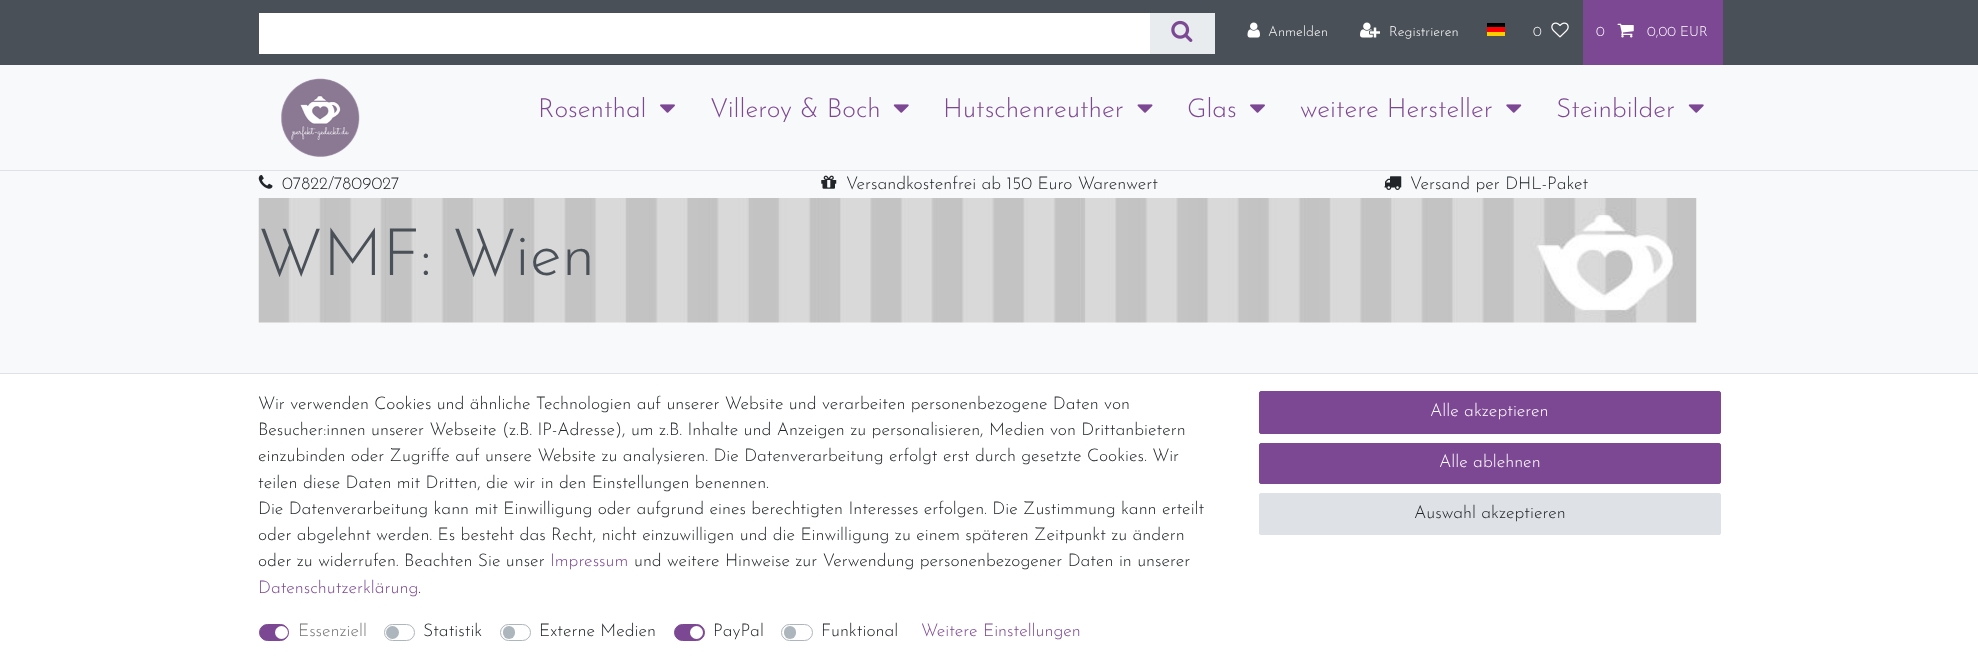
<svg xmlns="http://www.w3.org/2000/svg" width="1978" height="662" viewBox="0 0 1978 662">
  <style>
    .t1 { font: 300 14px Josefin Sans; fill: #fff; }
    .t2 { font: 300 26.25px Josefin Sans; fill: #7d4893; }
    .t3 { font: 300 17.5px Josefin Sans; fill: #212529; }
    .t4 { font: 300 65.5px Josefin Sans; fill: #495057; }
    .t5 { font: 300 17.5px Josefin Sans; fill: #7d4893; }
    .t6 { font: 300 17.5px Josefin Sans; fill: #767676; }
    .t7 { font: 300 17.5px Josefin Sans; fill: #fff; }
  </style>
  <rect width="100%" height="100%" fill="#f8f9fa"/>
  <rect x="0" y="0" width="1978" height="65" fill="#495057"/>
  <rect x="259" y="13" width="891" height="41" fill="#fff"/>
  <rect x="1150" y="13" width="65" height="41" fill="#e9ecef"/>
  <image x="1171" y="20" width="22" height="22" href="images/1.png"/>
  <image x="1247" y="22" width="13" height="16" href="images/2.png"/>
  <text x="1268" y="36" class="t1">Anmelden</text>
  <image x="1360" y="22" width="20" height="16" href="images/3.png"/>
  <text x="1389" y="36" class="t1">Registrieren</text>
  <rect x="1487" y="32" width="18" height="4" fill="#fc0"/>
  <rect x="1487" y="23" width="18" height="4" fill="#000"/>
  <rect x="1487" y="27" width="18" height="5" fill="#f00"/>
  <text x="1533" y="36" class="t1">0</text>
  <image x="1551" y="22" width="18" height="16" href="images/4.png"/>
  <rect x="1583" y="0" width="140" height="65" fill="#7d4893"/>
  <text x="1596" y="36" class="t1">0</text>
  <image x="1617" y="23" width="17" height="15" href="images/5.png"/>
  <text x="1647" y="36" class="t1">0,00 EUR</text>
  <rect x="0" y="170" width="1978" height="1" fill="#dee2e6"/>
  <image x="281" y="78" width="79" height="79" href="images/6.png"/>
  <text x="538" y="117" class="t2">Rosenthal</text>
  <image x="660" y="104" width="15" height="9" href="images/7.png"/>
  <text x="710" y="117" class="t2">Villeroy &amp; Boch</text>
  <image x="893" y="104" width="16" height="9" href="images/8.png"/>
  <text x="943" y="117" class="t2">Hutschenreuther</text>
  <image x="1137" y="104" width="16" height="9" href="images/9.png"/>
  <text x="1187" y="117" class="t2">Glas</text>
  <image x="1250" y="104" width="15" height="9" href="images/7.png"/>
  <text x="1300" y="117" class="t2">weitere Hersteller</text>
  <image x="1506" y="104" width="16" height="9" href="images/10.png"/>
  <text x="1556" y="117" class="t2">Steinbilder</text>
  <image x="1688" y="104" width="16" height="9" href="images/8.png"/>
  <image x="258" y="175" width="15" height="14" href="images/11.png"/>
  <text x="282" y="189" class="t3">07822/7809027</text>
  <image x="821" y="175" width="16" height="14" href="images/12.png"/>
  <text x="846" y="189" class="t3">Versandkostenfrei ab 150 Euro Warenwert</text>
  <image x="1384" y="176" width="18" height="14" href="images/13.png"/>
  <text x="1410" y="189" class="t3">Versand per DHL-Paket</text>
  <image x="258" y="198" width="1439" height="125" href="images/14.png"/>
  <text x="258" y="275" class="t4">WMF: Wien</text>
  <rect x="0" y="374" width="1978" height="288" fill="#fff"/>
  <rect x="0" y="373" width="1978" height="1" fill="#dee2e6"/>
  <text x="258" y="409" class="t3">Wir verwenden Cookies und ähnliche Technologien auf unserer Website und verarbeiten personenbezogene Daten von</text>
  <text x="258" y="435" class="t3">Besucher:innen unserer Webseite (z.B. IP-Adresse), um z.B. Inhalte und Anzeigen zu personalisieren, Medien von Drittanbietern</text>
  <text x="258" y="461" class="t3">einzubinden oder Zugriffe auf unsere Website zu analysieren. Die Datenverarbeitung erfolgt erst durch gesetzte Cookies. Wir</text>
  <text x="258" y="488" class="t3">teilen diese Daten mit Dritten, die wir in den Einstellungen benennen.</text>
  <text x="258" y="514" class="t3">Die Datenverarbeitung kann mit Einwilligung oder aufgrund eines berechtigten Interesses erfolgen. Die Zustimmung kann erteilt</text>
  <text x="258" y="540" class="t3">oder abgelehnt werden. Es besteht das Recht, nicht einzuwilligen und die Einwilligung zu einem späteren Zeitpunkt zu ändern</text>
  <text x="258" y="566" class="t3">oder zu widerrufen. Beachten Sie unser</text>
  <text x="550" y="566" class="t5">Impressum</text>
  <text x="634" y="566" class="t3">und weitere Hinweise zur Verwendung personenbezogener Daten in unserer</text>
  <text x="258" y="593" class="t5">Datenschutzerklärung</text>
  <text x="418" y="593" class="t3">.</text>
  <rect x="259.5" y="624.5" width="29" height="16" rx="8" fill="#7d4893" stroke="#7d4893"/>
  <text x="298" y="636" class="t6">Essenziell</text>
  <circle cx="281.5" cy="632.5" r="6.5" fill="#fff"/>
  <rect x="384.5" y="624.5" width="30" height="16" rx="8" fill="none" stroke="#adb5bd"/>
  <text x="423" y="636" class="t3">Statistik</text>
  <circle cx="392.5" cy="632.5" r="6.5" fill="#adb5bd"/>
  <rect x="500.5" y="624.5" width="30" height="16" rx="8" fill="none" stroke="#adb5bd"/>
  <text x="539" y="636" class="t3">Externe Medien</text>
  <rect x="503" y="626" width="12" height="13" rx="6" fill="#adb5bd"/>
  <rect x="674.5" y="624.5" width="30" height="16" rx="8" fill="#7d4893" stroke="#7d4893"/>
  <text x="713" y="636" class="t3">PayPal</text>
  <circle cx="696.5" cy="632.5" r="6.5" fill="#fff"/>
  <rect x="781.5" y="624.5" width="31" height="16" rx="8" fill="none" stroke="#adb5bd"/>
  <text x="821" y="636" class="t3">Funktional</text>
  <rect x="784" y="626" width="12" height="13" rx="6" fill="#adb5bd"/>
  <text x="921" y="636" class="t5">Weitere Einstellungen</text>
  <rect x="1259.5" y="391.5" width="461" height="42" rx="1.5" fill="#7d4893" stroke="#7d4893"/>
  <text x="1430" y="416" class="t7">Alle akzeptieren</text>
  <rect x="1259.5" y="443.5" width="461" height="40" rx="1.5" fill="#7d4893" stroke="#7d4893"/>
  <text x="1439" y="467" class="t7">Alle ablehnen</text>
  <rect x="1259.5" y="493.5" width="461" height="41" rx="1.5" fill="#dee2e6" stroke="#dee2e6"/>
  <text x="1414" y="518" class="t3">Auswahl akzeptieren</text>
</svg>
